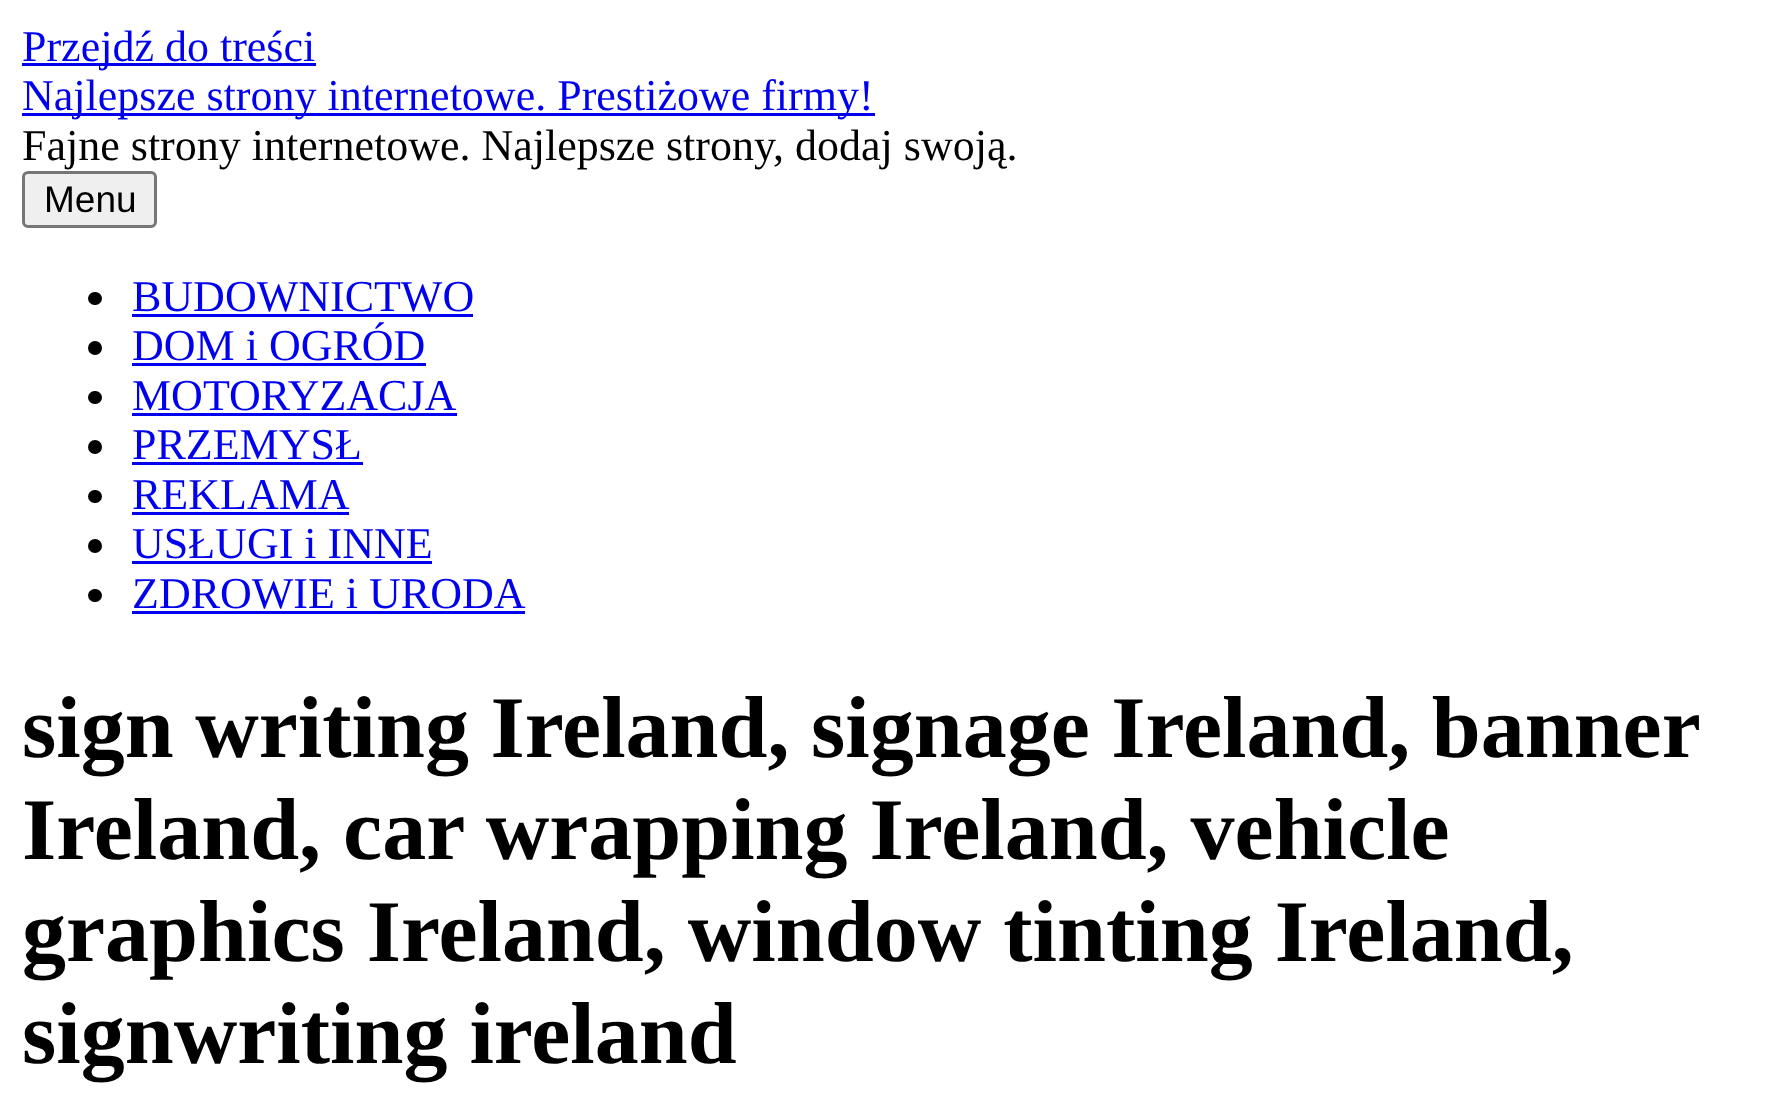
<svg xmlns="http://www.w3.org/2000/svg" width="1767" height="1095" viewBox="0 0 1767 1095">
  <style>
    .t1 { font: 44px Liberation Serif; fill: #00e; }
    .t2 { font: 44px Liberation Serif; fill: #000; }
    .t3 { font: 37px Liberation Sans; fill: #000; }
    .t4 { font: bold 88px Liberation Serif; fill: #000; }
  </style>
  <rect width="100%" height="100%" fill="#fff"/>
  <rect x="22" y="63" width="294" height="3" fill="#00e"/>
  <text x="22" y="61" class="t1">Przejdź do treści</text>
  <rect x="22" y="113" width="853" height="3" fill="#00e"/>
  <text x="22" y="110" class="t1">Najlepsze strony internetowe. Prestiżowe firmy!</text>
  <text x="22" y="160" class="t2">Fajne strony internetowe. Najlepsze strony, dodaj swoją.</text>
  <rect x="23.5" y="172.5" width="132" height="54" rx="4.5" fill="#efefef" stroke="#767676" stroke-width="3"/>
  <text x="44" y="212" class="t3">Menu</text>
  <rect x="88" y="292" width="14" height="13" rx="6.5" fill="#000"/>
  <text x="132" y="311" class="t1">BUDOWNICTWO</text>
  <rect x="132" y="314" width="341" height="3" fill="#00e"/>
  <circle cx="95" cy="348" r="7" fill="#000"/>
  <text x="132" y="360" class="t1">DOM i OGRÓD</text>
  <rect x="132" y="363" width="294" height="3" fill="#00e"/>
  <rect x="88" y="391" width="14" height="13" rx="6.5" fill="#000"/>
  <text x="132" y="410" class="t1">MOTORYZACJA</text>
  <rect x="132" y="413" width="325" height="3" fill="#00e"/>
  <circle cx="95" cy="447" r="7" fill="#000"/>
  <text x="132" y="459" class="t1">PRZEMYSŁ</text>
  <rect x="132" y="462" width="231" height="3" fill="#00e"/>
  <rect x="88" y="490" width="14" height="13" rx="6.5" fill="#000"/>
  <text x="132" y="509" class="t1">REKLAMA</text>
  <rect x="132" y="512" width="217" height="3" fill="#00e"/>
  <circle cx="95" cy="546" r="7" fill="#000"/>
  <text x="132" y="558" class="t1">USŁUGI i INNE</text>
  <rect x="132" y="561" width="300" height="3" fill="#00e"/>
  <rect x="88" y="589" width="14" height="13" rx="6.5" fill="#000"/>
  <text x="132" y="608" class="t1">ZDROWIE i URODA</text>
  <rect x="132" y="611" width="393" height="3" fill="#00e"/>
  <text x="22" y="757" word-spacing="-0.5" class="t4">sign writing Ireland, signage Ireland, banner</text>
  <text x="22" y="859" class="t4">Ireland, car wrapping Ireland, vehicle</text>
  <text x="22" y="961" class="t4">graphics Ireland, window tinting Ireland,</text>
  <text x="22" y="1063" class="t4">signwriting ireland</text>
</svg>
